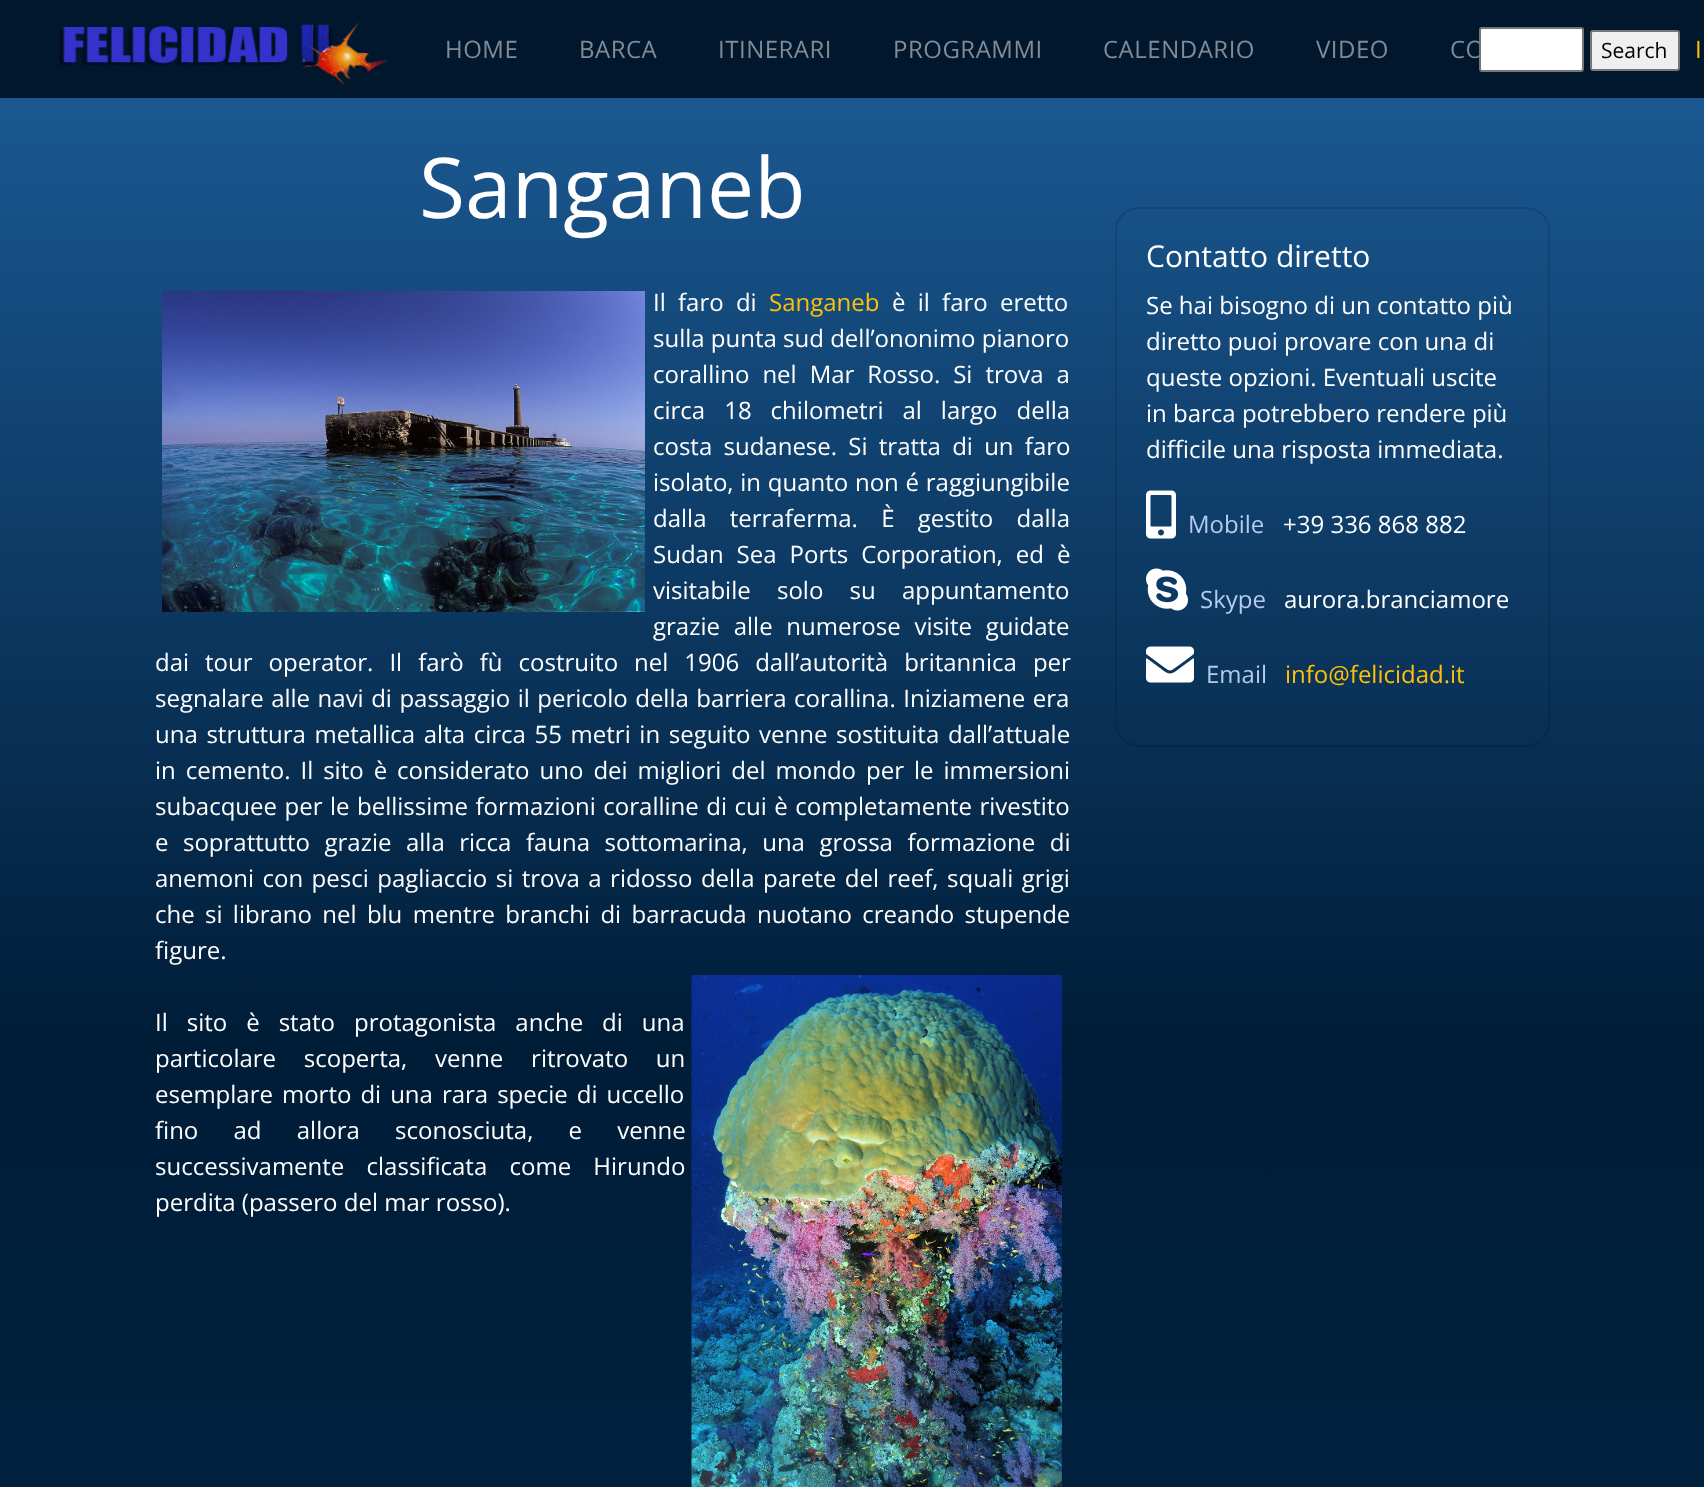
<svg xmlns="http://www.w3.org/2000/svg" width="1704" height="1487" viewBox="0 0 1704 1487">
  <style>
    .t1 { font: 24px Open Sans; letter-spacing: 0.5px; fill: #808b96; }
    .t2 { font: 24px Open Sans; fill: #ffc107; }
    .t3 { font: 21px Open Sans; fill: #000; }
    .t4 { font: 84px Open Sans; fill: #fff; }
    .t5 { font: 24px Open Sans; fill: #fff; }
    .t6 { font: 30px Open Sans; fill: #fff; }
    .t7 { font: 24px Open Sans; fill: #b5caec; }
  </style>
  <defs>
    <linearGradient id="g1" gradientUnits="userSpaceOnUse" x1="852" y1="0" x2="852" y2="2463"><stop offset="0" stop-color="#1d5e9a"/><stop offset="0.42" stop-color="#001d38"/><stop offset="1" stop-color="#002849"/></linearGradient>
  </defs>
  <rect width="100%" height="100%" fill="#fff"/>
  <rect x="0" y="98" width="1704" height="1389" fill="url(#g1)"/>
  <rect x="0" y="0" width="1704" height="98" fill="#00172d"/>
  <image x="59" y="22" width="332" height="64" href="images/1.png"/>
  <text x="445" y="58" class="t1">HOME</text>
  <text x="579" y="58" class="t1">BARCA</text>
  <text x="718" y="58" class="t1">ITINERARI</text>
  <text x="893" y="58" class="t1">PROGRAMMI</text>
  <text x="1103" y="58" class="t1">CALENDARIO</text>
  <text x="1316" y="58" class="t1">VIDEO</text>
  <text x="1450" y="58" class="t1">CO</text>
  <text x="1695" y="58" class="t2">I</text>
  <rect x="1480" y="28" width="103" height="43" rx="2" fill="#fff" stroke="#767676" stroke-width="2"/>
  <rect x="1591" y="31" width="88" height="39" rx="2" fill="#efefef" stroke="#767676" stroke-width="2"/>
  <text x="1601" y="58" class="t3">Search</text>
  <text x="419" y="218" class="t4">Sanganeb</text>
  <image x="162" y="291" width="483" height="321" href="images/2.png"/>
  <text x="653" y="311" word-spacing="6" class="t5">Il faro di</text>
  <text x="769" y="311" class="t2">Sanganeb</text>
  <text x="892" y="311" word-spacing="6" class="t5">è il faro eretto</text>
  <text x="653" y="347" class="t5">sulla punta sud dell’ononimo pianoro</text>
  <text x="653" y="383" word-spacing="6.75" class="t5">corallino nel Mar Rosso. Si trova a</text>
  <text x="653" y="419" word-spacing="12.75" class="t5">circa 18 chilometri al largo della</text>
  <text x="653" y="455" word-spacing="5" class="t5">costa sudanese. Si tratta di un faro</text>
  <text x="653" y="491" word-spacing="0.5" class="t5">isolato, in quanto non é raggiungibile</text>
  <text x="653" y="527" word-spacing="17" class="t5">dalla terraferma. È gestito dalla</text>
  <text x="653" y="563" word-spacing="6.75" class="t5">Sudan Sea Ports Corporation, ed è</text>
  <text x="653" y="599" word-spacing="20" class="t5">visitabile solo su appuntamento</text>
  <text x="653" y="635" word-spacing="7.5" class="t5">grazie alle numerose visite guidate</text>
  <text x="155" y="671" word-spacing="9.75" class="t5">dai tour operator. Il farò fù costruito nel 1906 dall’autorità britannica per</text>
  <text x="155" y="707" word-spacing="1.25" class="t5">segnalare alle navi di passaggio il pericolo della barriera corallina. Iniziamene era</text>
  <text x="155" y="743" word-spacing="2.4" class="t5">una struttura metallica alta circa 55 metri in seguito venne sostituita dall’attuale</text>
  <text x="155" y="779" word-spacing="3.75" class="t5">in cemento. Il sito è considerato uno dei migliori del mondo per le immersioni</text>
  <text x="155" y="815" word-spacing="1.25" class="t5">subacquee per le bellissime formazioni coralline di cui è completamente rivestito</text>
  <text x="155" y="851" word-spacing="8.25" class="t5">e soprattutto grazie alla ricca fauna sottomarina, una grossa formazione di</text>
  <text x="155" y="887" word-spacing="2.25" class="t5">anemoni con pesci pagliaccio si trova a ridosso della parete del reef, squali grigi</text>
  <text x="155" y="923" word-spacing="4.1" class="t5">che si librano nel blu mentre branchi di barracuda nuotano creando stupende</text>
  <text x="155" y="959" class="t5">figure.</text>
  <text x="155" y="1031" word-spacing="12.75" class="t5">Il sito è stato protagonista anche di una</text>
  <image x="691" y="975" width="371" height="512" href="images/3.png"/>
  <text x="155" y="1067" word-spacing="21.5" class="t5">particolare scoperta, venne ritrovato un</text>
  <text x="155" y="1103" word-spacing="2.75" class="t5">esemplare morto di una rara specie di uccello</text>
  <text x="155" y="1139" word-spacing="29" class="t5">fino ad allora sconosciuta, e venne</text>
  <text x="155" y="1175" word-spacing="16" class="t5">successivamente classificata come Hirundo</text>
  <text x="155" y="1211" class="t5">perdita (passero del mar rosso).</text>
  <rect x="1116" y="208" width="433" height="538" rx="23" fill="none" stroke="#0000001f" stroke-width="2"/>
  <text x="1146" y="267" class="t6">Contatto diretto</text>
  <text x="1146" y="314" class="t5">Se hai bisogno di un contatto più</text>
  <text x="1146" y="350" class="t5">diretto puoi provare con una di</text>
  <text x="1146" y="386" class="t5">queste opzioni. Eventuali uscite</text>
  <text x="1146" y="422" class="t5">in barca potrebbero rendere più</text>
  <text x="1146" y="458" class="t5">difficile una risposta immediata.</text>
  <image x="1146" y="490" width="30" height="49" href="images/4.png"/>
  <text x="1188" y="533" class="t7">Mobile</text>
  <text x="1283" y="533" class="t5">+39 336 868 882</text>
  <image x="1146" y="568" width="42" height="43" href="images/5.png"/>
  <text x="1200" y="608" class="t7">Skype</text>
  <text x="1284" y="608" class="t5">aurora.branciamore</text>
  <image x="1146" y="646" width="48" height="37" href="images/6.png"/>
  <text x="1206" y="683" class="t7">Email</text>
  <text x="1285" y="683" class="t2">info@felicidad.it</text>
</svg>
